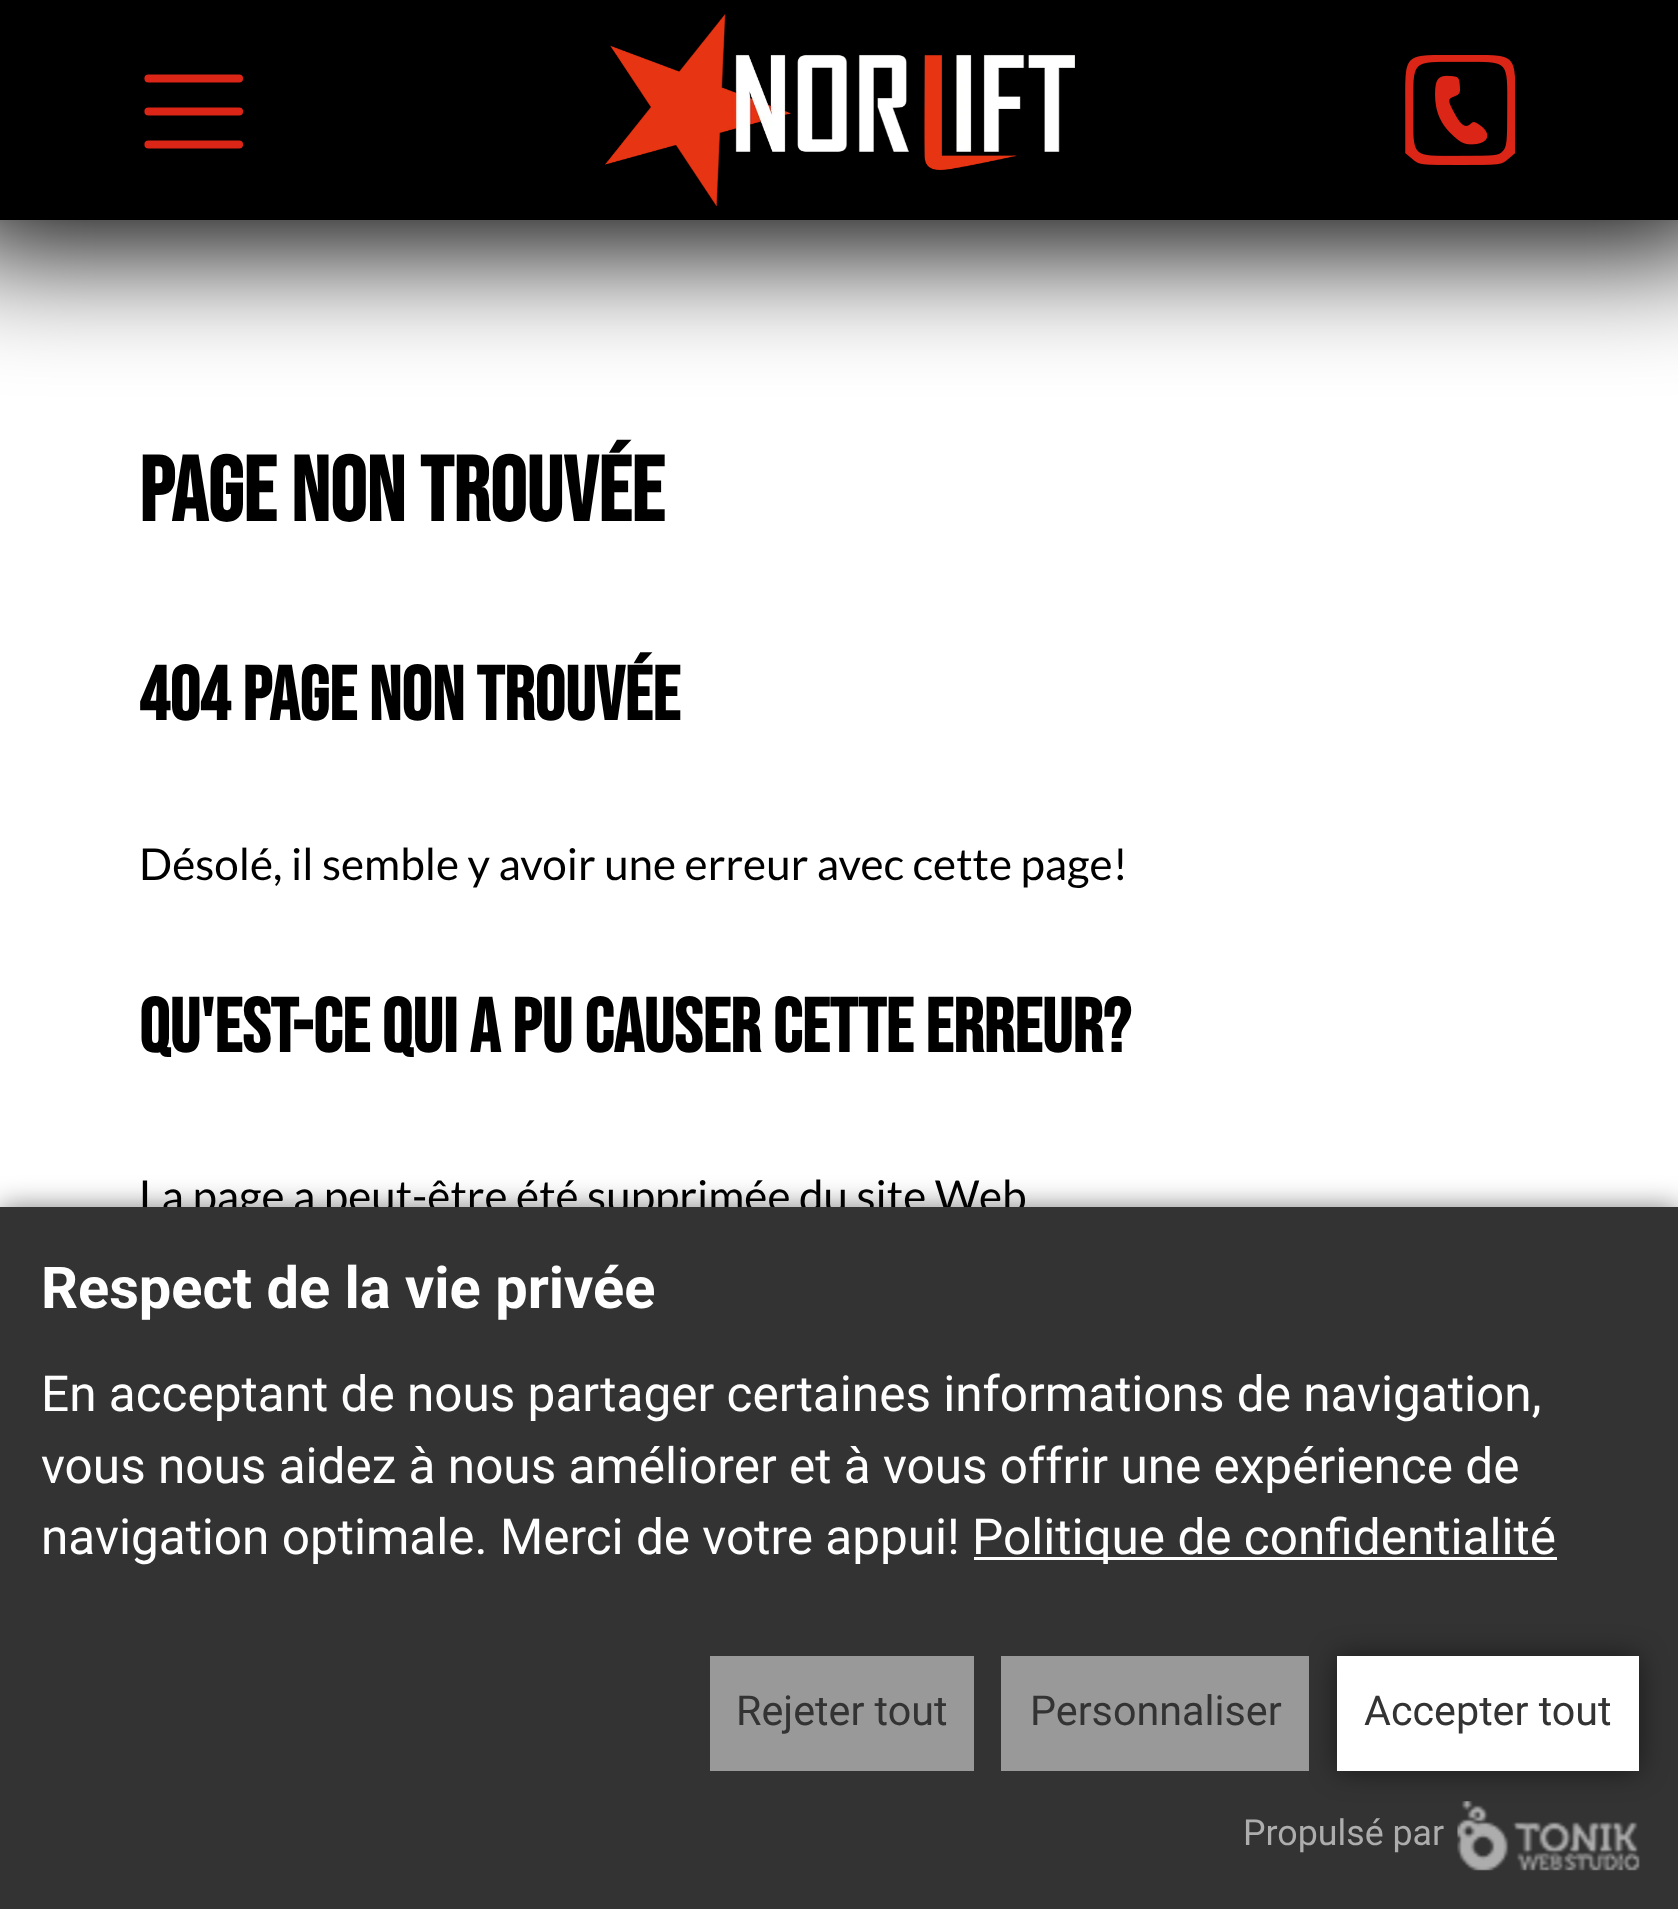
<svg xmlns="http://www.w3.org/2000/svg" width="1678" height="1909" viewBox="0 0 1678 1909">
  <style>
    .t1 { font: bold 91.25px Bebas Neue; fill: #000; }
    .t2 { font: bold 76px Bebas Neue; fill: #000; }
    .t3 { font: 44px Lato; fill: #000; }
    .t4 { font: bold 57.75px Roboto; fill: #fff; }
    .t5 { font: 49.5px Roboto; fill: #fff; }
    .t6 { font: 41.25px Roboto; fill: #333; }
    .t7 { font: 35.75px Roboto; fill: #adadad; }
  </style>
  <rect width="100%" height="100%" fill="#fff"/>
  <rect x="-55" y="-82" width="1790" height="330" fill="#000" filter="blur(62px)"/>
  <rect x="0" y="0" width="1678" height="220" fill="#000"/>
  <path d="M148.5 78.5H239M148.5 111.5H239M148.5 144.5H239" fill="none" stroke="#da2517" stroke-width="8.2" stroke-linecap="round"/>
  <image x="605" y="14" width="470" height="192" href="images/1.png"/>
  <image x="1405" y="55" width="110" height="110" href="images/2.png"/>
  <text x="139" y="521" class="t1">Page non trouvée</text>
  <text x="139" y="720" class="t2">404 Page non trouvée</text>
  <text x="139" y="880" class="t3">Désolé, il semble y avoir une erreur avec cette page!</text>
  <text x="139" y="1052" class="t2">Qu'est-ce qui a pu causer cette erreur?</text>
  <text x="139" y="1212" class="t3">La page a peut-être été supprimée du site Web</text>
  <rect x="0" y="1207" width="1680" height="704" fill="#00000080" filter="blur(14px)"/>
  <rect x="0" y="1207" width="1678" height="702" fill="#333"/>
  <text x="41" y="1308" class="t4">Respect de la vie privée</text>
  <text x="41" y="1411" class="t5">En acceptant de nous partager certaines informations de navigation,</text>
  <text x="41" y="1483" class="t5">vous nous aidez à nous améliorer et à vous offrir une expérience de</text>
  <text x="41" y="1554" class="t5">navigation optimale. Merci de votre appui!</text>
  <rect x="974" y="1557" width="583" height="3" fill="#fff"/>
  <text x="972" y="1554" class="t5">Politique de confidentialité</text>
  <rect x="710" y="1656" width="264" height="115" fill="#999"/>
  <text x="736" y="1725" class="t6">Rejeter tout</text>
  <rect x="1337" y="1656" width="302" height="115" fill="#00000080" filter="blur(14px)"/>
  <rect x="1001" y="1656" width="308" height="115" fill="#999"/>
  <text x="1030" y="1725" class="t6">Personnaliser</text>
  <rect x="1337" y="1656" width="302" height="115" fill="#fff"/>
  <text x="1364" y="1725" class="t6">Accepter tout</text>
  <text x="1243" y="1845" class="t7">Propulsé par</text>
  <image x="1457" y="1801" width="183" height="70" href="images/3.png"/>
</svg>
